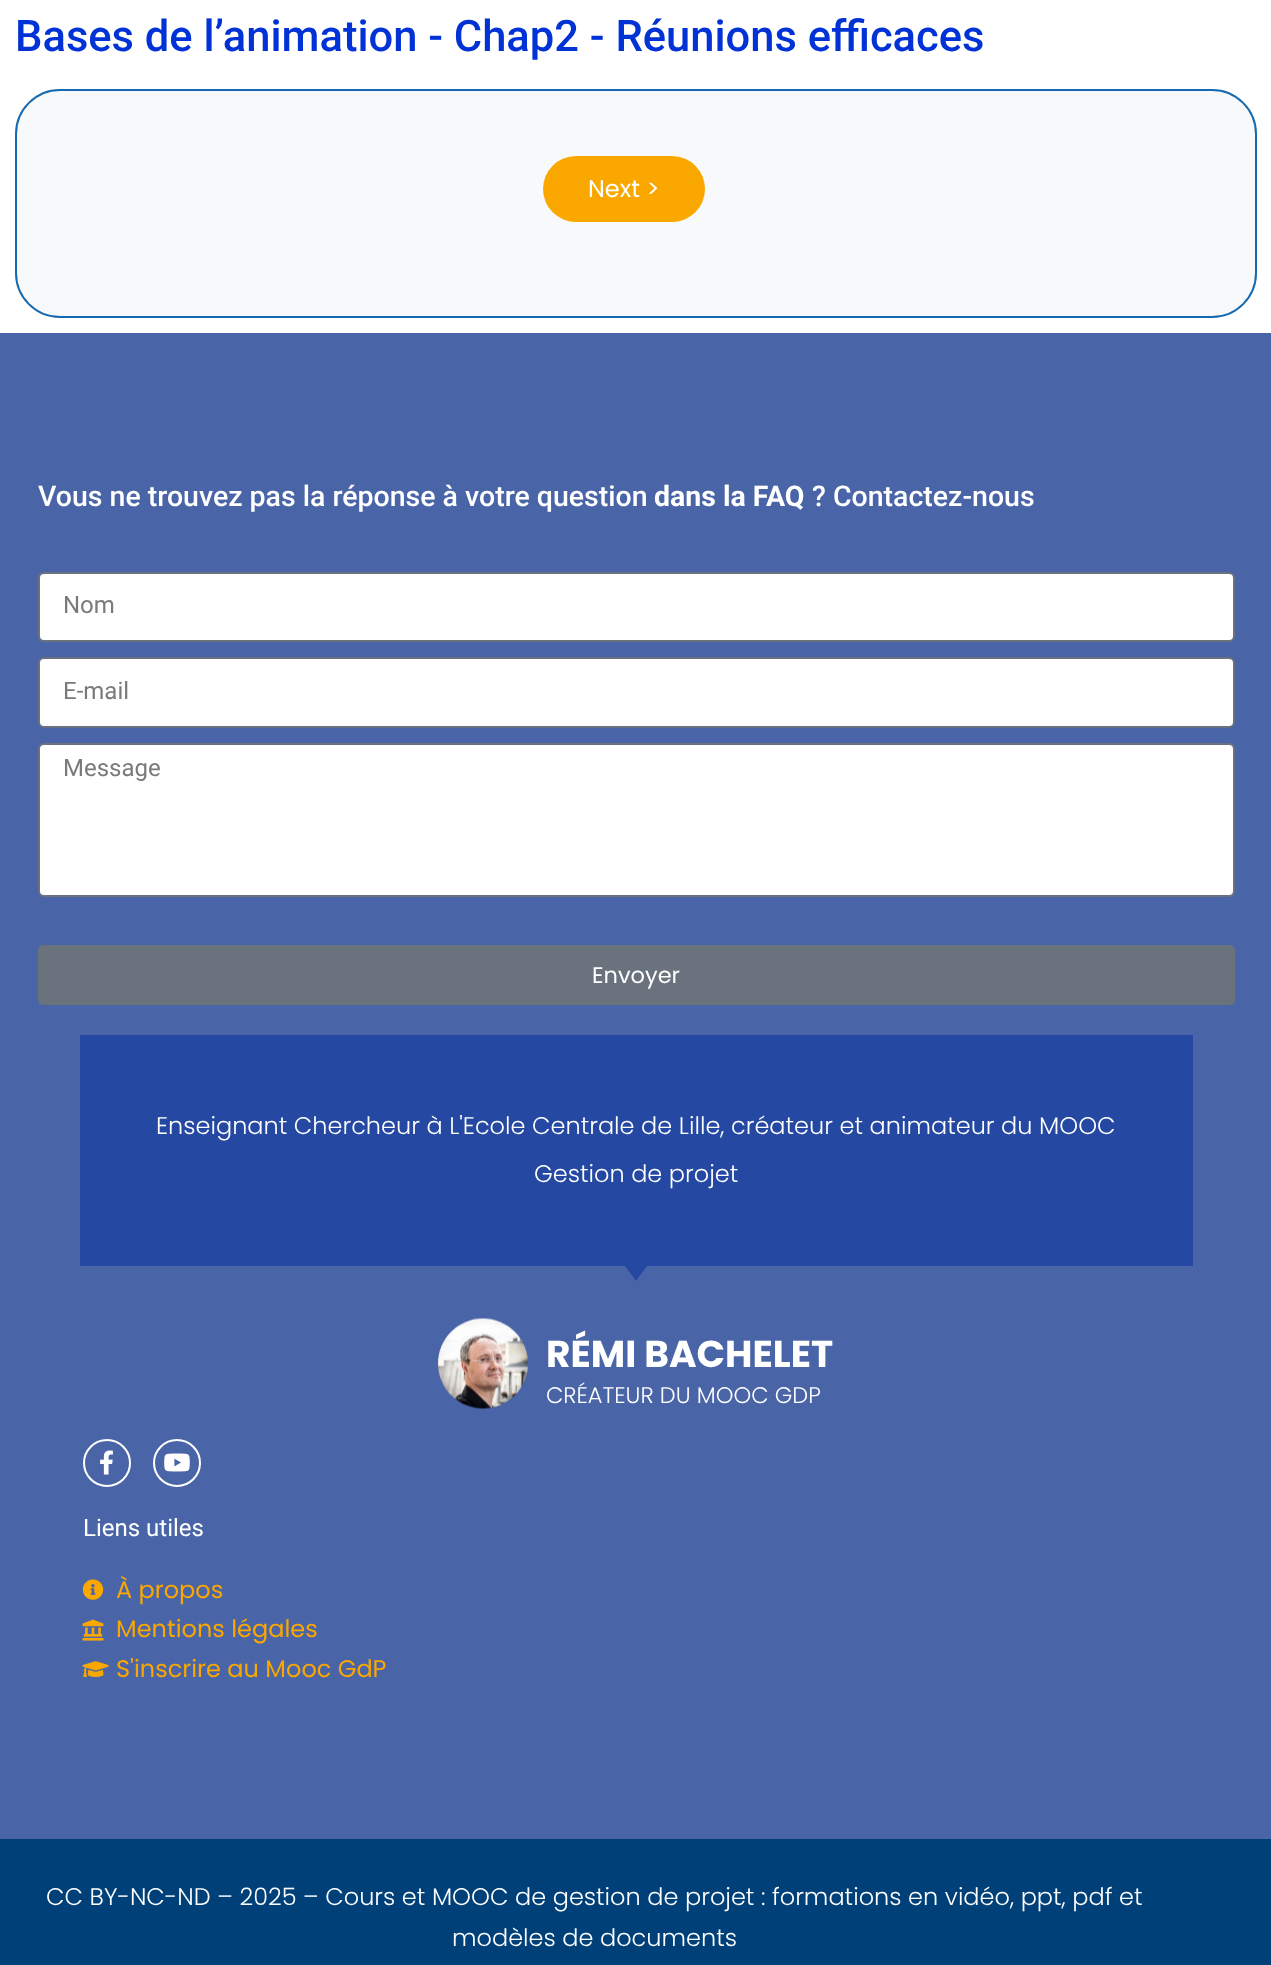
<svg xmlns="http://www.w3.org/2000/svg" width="1271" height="1965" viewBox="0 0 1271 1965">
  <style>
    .t1 { font: 500 43.5px Roboto; fill: #0032d6; }
    .t2 { font: 24px Poppins; fill: #fff; }
    .t3 { font: 500 28.5px Roboto; fill: #fff; }
    .t4 { font: bold 28.5px Roboto; fill: #fff; }
    .t5 { font: 24px Roboto; fill: #797a7c; }
    .t6 { font: 22.5px Poppins; fill: #fff; }
    .t7 { font: 300 24px Poppins; fill: #fff; }
    .t8 { font: bold 37.5px Poppins; fill: #fff; }
    .t9 { font: 300 22.5px Poppins; fill: #fff; }
    .t10 { font: 24px Roboto; fill: #fff; }
    .t11 { font: 24px Poppins; fill: #faa700; }
  </style>
  <rect width="100%" height="100%" fill="#fff"/>
  <text x="15" y="51" class="t1">Bases de l’animation - Chap2 - Réunions efficaces</text>
  <rect x="16" y="90" width="1240" height="227" rx="44" fill="#f8f9fa" stroke="#1569ae" stroke-width="2"/>
  <rect x="543" y="156" width="162" height="66" rx="33" fill="#faa700"/>
  <text x="588" y="197" class="t2">Next &gt;</text>
  <rect x="0" y="333" width="1271" height="1506" fill="#4a65a7"/>
  <text x="38" y="506" class="t3">Vous ne trouvez pas la réponse à votre question</text>
  <text x="654" y="506" class="t4">dans la FAQ</text>
  <text x="812" y="506" class="t3">? Contactez-nous</text>
  <rect x="39" y="573" width="1195" height="68" rx="5" fill="#fff" stroke="#69727d" stroke-width="2"/>
  <text x="63" y="613" class="t5">Nom</text>
  <rect x="39" y="658" width="1195" height="69" rx="5" fill="#fff" stroke="#69727d" stroke-width="2"/>
  <text x="63" y="699" class="t5">E-mail</text>
  <rect x="39" y="744" width="1195" height="152" rx="5" fill="#fff" stroke="#69727d" stroke-width="2"/>
  <text x="63" y="776" class="t5">Message</text>
  <rect x="38" y="945" width="1197" height="60" rx="5" fill="#69727d"/>
  <text x="592" y="983" class="t6">Envoyer</text>
  <rect x="80" y="1035" width="1113" height="231" fill="#2549a2"/>
  <text x="156" y="1134" class="t7">Enseignant Chercheur à L'Ecole Centrale de Lille, créateur et animateur du MOOC</text>
  <text x="534" y="1182" class="t7">Gestion de projet</text>
  <path d="M636 1251.5L647 1266L636 1281L625 1266Z" fill="#2549a2"/>
  <image x="438" y="1318" width="90" height="91" href="images/1.png"/>
  <text x="546" y="1367" class="t8">RÉMI BACHELET</text>
  <text x="546" y="1403" class="t9">CRÉATEUR DU MOOC GDP</text>
  <circle cx="107" cy="1463" r="23" fill="none" stroke="#fff" stroke-width="2"/>
  <image x="100" y="1450" width="13" height="25" href="images/2.png"/>
  <circle cx="177" cy="1463" r="23" fill="none" stroke="#fff" stroke-width="2"/>
  <image x="164" y="1453" width="26" height="19" href="images/3.png"/>
  <text x="83" y="1536" class="t10">Liens utiles</text>
  <image x="82" y="1579" width="22" height="21" href="images/4.png"/>
  <text x="116" y="1598" class="t11">À propos</text>
  <image x="82" y="1619" width="22" height="22" href="images/5.png"/>
  <text x="116" y="1637" class="t11">Mentions légales</text>
  <image x="82" y="1661" width="27" height="16" href="images/6.png"/>
  <text x="116" y="1677" class="t11">S'inscrire au Mooc GdP</text>
  <rect x="0" y="1839" width="1271" height="126" fill="#004079"/>
  <text x="46" y="1905" class="t7">CC BY-NC-ND – 2025 – Cours et MOOC de gestion de projet : formations en vidéo, ppt, pdf et</text>
  <text x="452" y="1946" class="t7">modèles de documents</text>
</svg>
